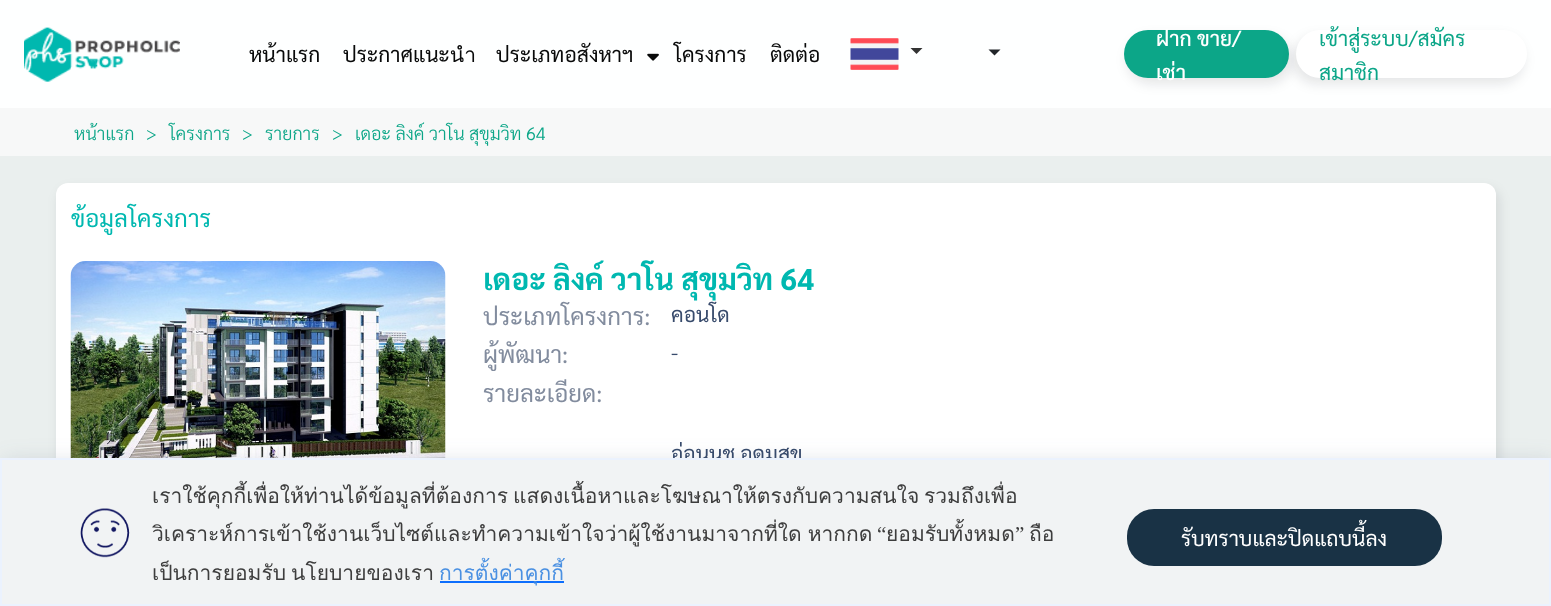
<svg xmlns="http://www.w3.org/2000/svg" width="1551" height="606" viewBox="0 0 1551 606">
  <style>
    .t1 { font: 21px Sarabun; fill: #090a0a; }
    .t2 { font: 500 21px Sarabun; fill: #fff; }
    .t3 { font: 21px Sarabun; fill: #0ca688; }
    .t4 { font: 300 18px Sarabun; fill: #0ca688; }
    .t5 { font: 24px Sarabun; fill: #00b8b0; }
    .t6 { font: bold 30px Sarabun; fill: #00b8b0; }
    .t7 { font: 24px Sarabun; fill: #828c9e; }
    .t8 { font: 21px Sarabun; fill: #384b6c; }
    .t9 { font: 21px Loma; fill: #3d3d3d; }
    .t10 { font: 21px Liberation Serif; fill: #3d3d3d; }
    .t11 { font: 21px Loma; fill: #4a90e2; }
    .t12 { font: 21px Sarabun; fill: #fff; }
  </style>
  <rect width="100%" height="100%" fill="#eaefee"/>
  <rect x="0" y="0" width="1551" height="108" fill="#feffff"/>
  <image x="24" y="27" width="156" height="55" href="images/1.png"/>
  <text x="249" y="62" class="t1">หน้าแรก</text>
  <text x="343" y="62" class="t1">ประกาศแนะนำ</text>
  <text x="496" y="62" class="t1">ประเภทอสังหาฯ</text>
  <image x="647" y="53" width="12" height="8" href="images/2.png"/>
  <text x="674" y="62" class="t1">โครงการ</text>
  <text x="770" y="62" class="t1">ติดต่อ</text>
  <image x="850" y="38" width="49" height="32" href="images/3.png"/>
  <path d="M910.5 48H922.5L916.5 54Z" fill="#333"/>
  <path d="M988.5 49.5H1000.5L994.5 55.5Z" fill="#212529"/>
  <rect x="1127" y="36" width="165" height="48" rx="24" fill="#0a0a101a" filter="blur(6px)"/>
  <rect x="1124" y="30" width="165" height="48" rx="24" fill="#0ca688"/>
  <text x="1156" y="46" class="t2">ฝาก ขาย/</text>
  <text x="1156" y="80" class="t2">เช่า</text>
  <rect x="1293" y="36" width="231" height="48" rx="24" fill="#0a0a101a" filter="blur(6px)"/>
  <rect x="1296" y="30" width="231" height="48" rx="24" fill="#fff"/>
  <text x="1319" y="46" class="t3">เข้าสู่ระบบ/สมัคร</text>
  <text x="1319" y="80" class="t3">สมาชิก</text>
  <rect x="0" y="108" width="1551" height="48" fill="#f7f8f8"/>
  <text x="74" y="140" class="t4">หน้าแรก</text>
  <text x="146" y="140" class="t4">&gt;</text>
  <text x="169" y="140" class="t4">โครงการ</text>
  <text x="242" y="140" class="t4">&gt;</text>
  <text x="265" y="140" class="t4">รายการ</text>
  <text x="332" y="140" class="t4">&gt;</text>
  <text x="355" y="140" class="t4">เดอะ ลิงค์ วาโน สุขุมวิท 64</text>
  <rect x="59" y="189" width="1440" height="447" rx="12" fill="#0a0a101a" filter="blur(6px)"/>
  <rect x="56" y="183" width="1440" height="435" rx="12" fill="#fff"/>
  <text x="71" y="227" class="t5">ข้อมูลโครงการ</text>
  <image x="70" y="261" width="376" height="197" href="images/4.png"/>
  <text x="483" y="290" class="t6">เดอะ ลิงค์ วาโน สุขุมวิท 64</text>
  <text x="483" y="325" class="t7">ประเภทโครงการ:</text>
  <text x="671" y="322" class="t8">คอนโด</text>
  <text x="483" y="363" class="t7">ผู้พัฒนา:</text>
  <text x="671" y="360" class="t8">-</text>
  <text x="483" y="402" class="t7">รายละเอียด:</text>
  <text x="671" y="461" class="t8">อ่อนนุช อุดมสุข</text>
  <rect x="3" y="464" width="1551" height="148" fill="#384b6c33" filter="blur(12px)"/>
  <rect x="1" y="459" width="1549" height="146" fill="#f1f3f4" stroke="#ebf2fe" stroke-width="2"/>
  <image x="80" y="508" width="50" height="50" href="images/5.png"/>
  <text x="152" y="503" word-spacing="-2" class="t9">เราใช้คุกกี้เพื่อให้ท่านได้ข้อมูลที่ต้องการ แสดงเนื้อหาและโฆษณาให้ตรงกับความสนใจ</text>
  <text x="924" y="503" class="t9">รวมถึงเพื่อ</text>
  <text x="152" y="541" word-spacing="-1" class="t9">วิเคราะห์การเข้าใช้งานเว็บไซต์และทำความเข้าใจว่าผู้ใช้งานมาจากที่ใด หากกด</text>
  <text x="877" y="541" class="t10">“</text>
  <text x="886" y="541" class="t9">ยอมรับทั้งหมด</text>
  <text x="1015" y="541" class="t10">”</text>
  <text x="1029" y="541" class="t9">ถือ</text>
  <text x="152" y="580" word-spacing="-2" class="t9">เป็นการยอมรับ นโยบายของเรา</text>
  <rect x="440" y="581" width="124" height="2" fill="#0d6efd"/>
  <text x="439" y="580" class="t11">การตั้งค่าคุกกี้</text>
  <rect x="1127" y="509" width="315" height="57" rx="27" fill="#193245"/>
  <text x="1181" y="546" class="t12">รับทราบและปิดแถบนี้ลง</text>
</svg>
